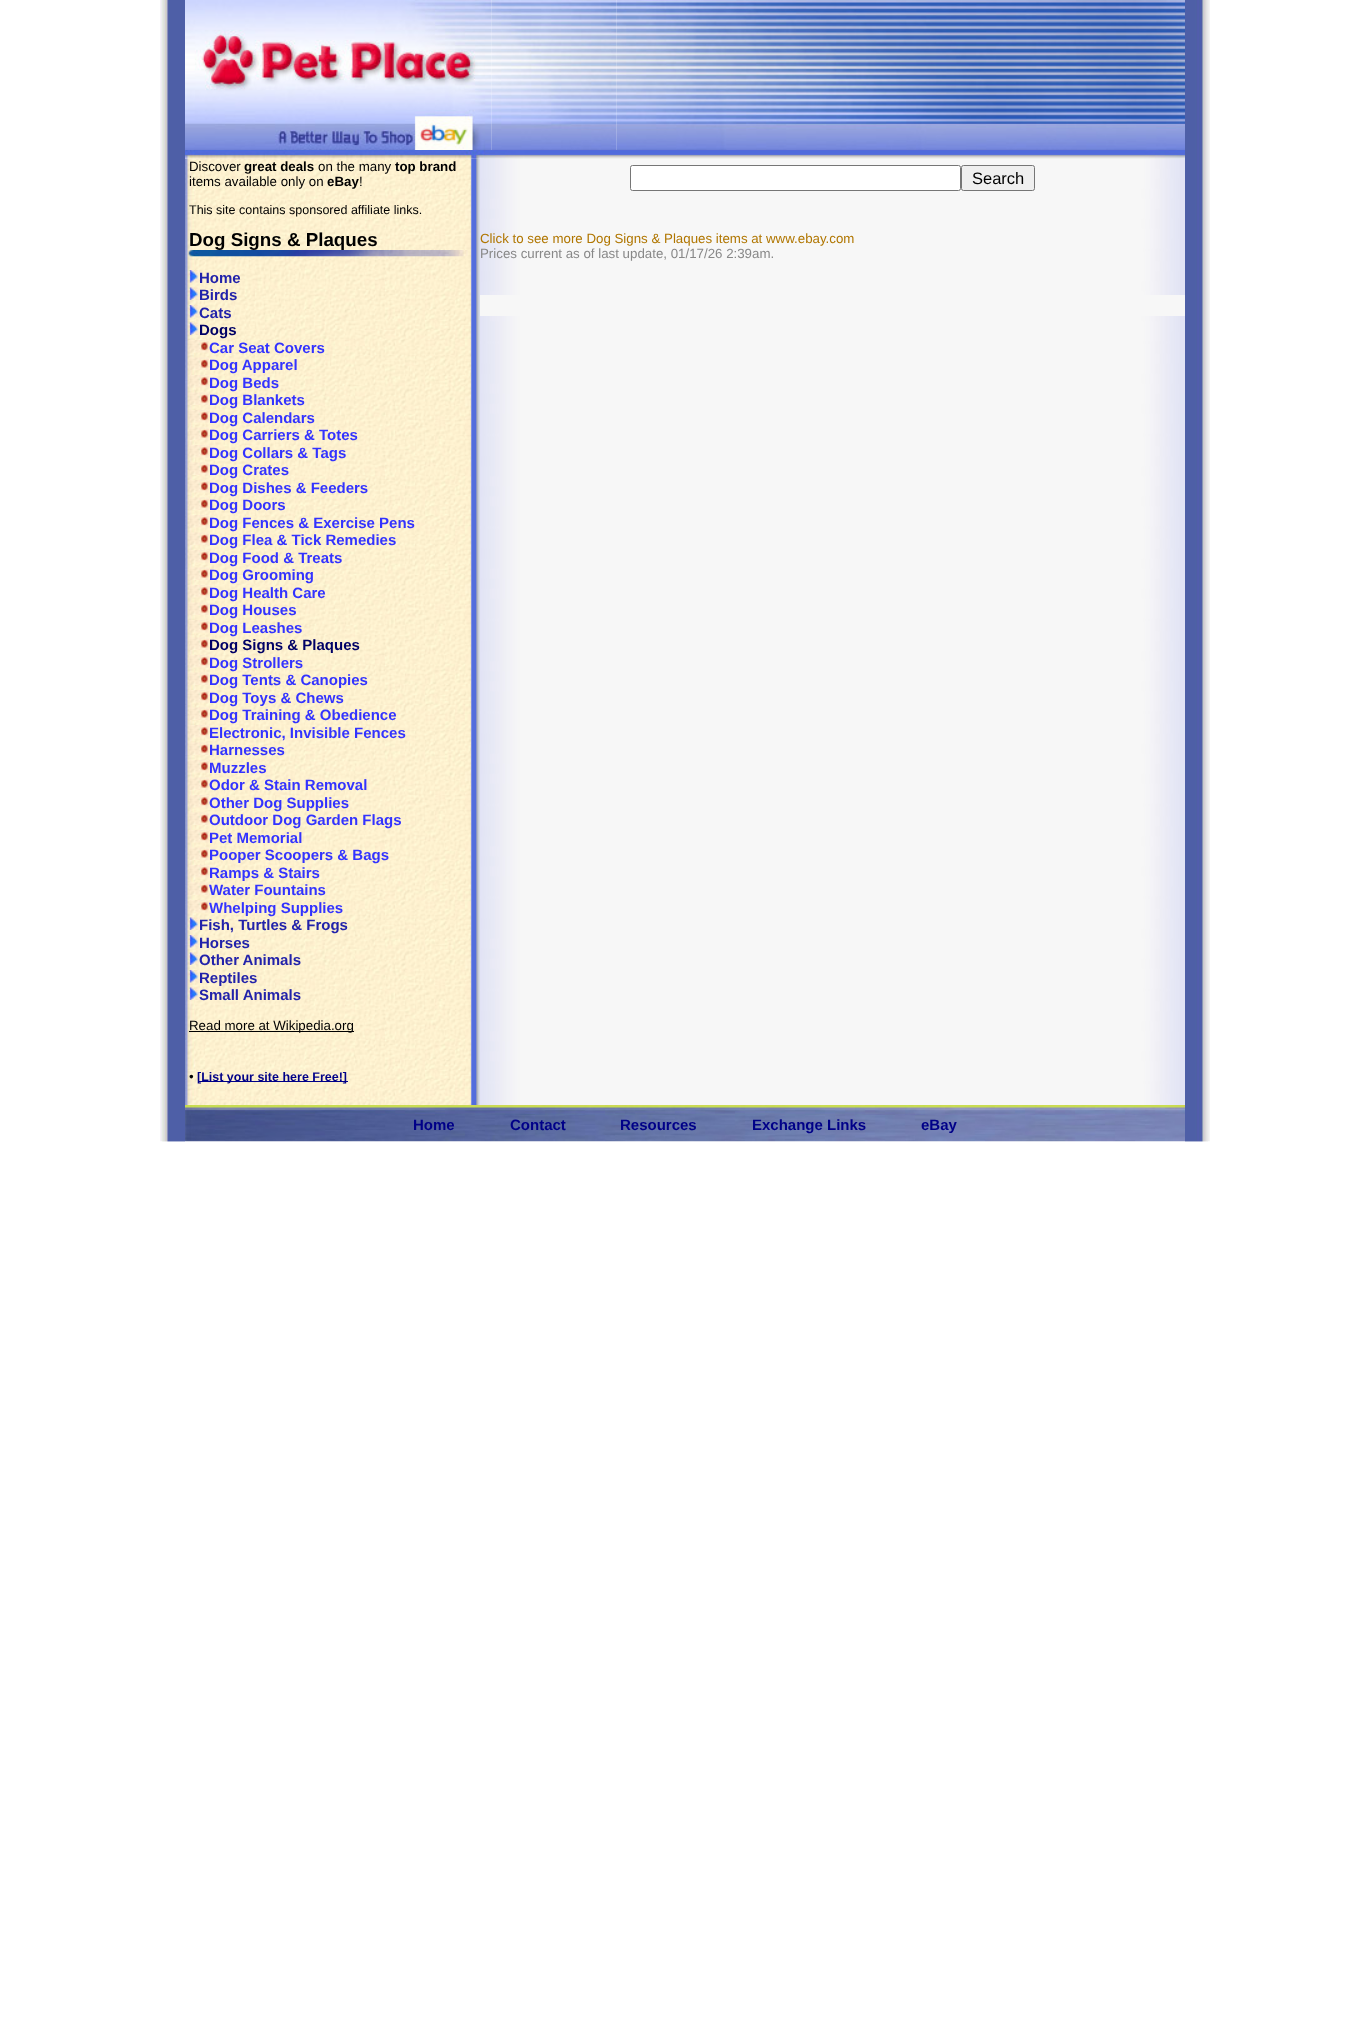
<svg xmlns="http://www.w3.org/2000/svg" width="1370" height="2027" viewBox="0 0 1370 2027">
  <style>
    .t1 { font: 13.3px Liberation Sans; fill: #000; }
    .t2 { font: bold 13.3px Liberation Sans; fill: #000; }
    .t3 { font: 12.5px Liberation Sans; fill: #000; }
    .t4 { font: bold 18.75px Liberation Sans; fill: #000; }
    .t5 { font: bold 15px Liberation Sans; fill: #22a; }
    .t6 { font: bold 15px Liberation Sans; fill: #006; }
    .t7 { font: bold 15px Liberation Sans; fill: #33f; }
    .t8 { font: bold 12.5px Liberation Sans; fill: #008; }
    .t9 { font: 16.5px Liberation Sans; fill: #000; }
    .t10 { font: 13.3px Liberation Sans; fill: #b07600; }
    .t11 { font: 13.3px Liberation Sans; fill: #888; }
    .t12 { font: bold 15px Liberation Sans; fill: #008; }
  </style>
  <rect width="100%" height="100%" fill="#fff"/>
  <image x="160" y="0" width="25" height="1142" href="images/1.png"/>
  <image x="162" y="1141" width="23" height="1" href="images/2.png"/>
  <image x="185" y="0" width="307" height="150" href="images/3.png"/>
  <image x="491" y="0" width="126" height="150" href="images/4.png"/>
  <image x="616" y="0" width="569" height="150" href="images/5.png"/>
  <image x="185" y="150" width="1000" height="9" href="images/6.png"/>
  <image x="185" y="158" width="287" height="947" href="images/7.png"/>
  <text x="189" y="171" class="t1">Discover</text>
  <text x="244" y="171" class="t2">great deals</text>
  <text x="318" y="171" class="t1">on the many</text>
  <text x="395" y="171" class="t2">top brand</text>
  <text x="189" y="186" class="t1">items available only on</text>
  <text x="327" y="186" class="t2">eBay</text>
  <text x="359" y="186" class="t1">!</text>
  <text x="189" y="214" class="t3">This site contains sponsored affiliate links.</text>
  <text x="189" y="246" class="t4">Dog Signs &amp; Plaques</text>
  <image x="188" y="250" width="280" height="7" href="images/8.png"/>
  <image x="188" y="270" width="11" height="13" href="images/9.png"/>
  <text x="199" y="283" class="t5">Home</text>
  <image x="188" y="287" width="11" height="13" href="images/10.png"/>
  <text x="199" y="300" class="t5">Birds</text>
  <image x="188" y="305" width="11" height="13" href="images/11.png"/>
  <text x="199" y="318" class="t5">Cats</text>
  <image x="188" y="322" width="11" height="13" href="images/12.png"/>
  <text x="199" y="335" class="t6">Dogs</text>
  <image x="188" y="340" width="21" height="13" href="images/13.png"/>
  <text x="209" y="353" class="t7">Car Seat Covers</text>
  <image x="188" y="357" width="21" height="13" href="images/14.png"/>
  <text x="209" y="370" class="t7">Dog Apparel</text>
  <image x="188" y="375" width="21" height="13" href="images/15.png"/>
  <text x="209" y="388" class="t7">Dog Beds</text>
  <image x="188" y="392" width="21" height="13" href="images/16.png"/>
  <text x="209" y="405" class="t7">Dog Blankets</text>
  <image x="188" y="410" width="21" height="13" href="images/17.png"/>
  <text x="209" y="423" class="t7">Dog Calendars</text>
  <image x="188" y="427" width="21" height="13" href="images/18.png"/>
  <text x="209" y="440" class="t7">Dog Carriers &amp; Totes</text>
  <image x="188" y="445" width="21" height="13" href="images/19.png"/>
  <text x="209" y="458" class="t7">Dog Collars &amp; Tags</text>
  <image x="188" y="462" width="21" height="13" href="images/20.png"/>
  <text x="209" y="475" class="t7">Dog Crates</text>
  <image x="188" y="480" width="21" height="13" href="images/21.png"/>
  <text x="209" y="493" class="t7">Dog Dishes &amp; Feeders</text>
  <image x="189" y="497" width="20" height="13" href="images/22.png"/>
  <text x="209" y="510" class="t7">Dog Doors</text>
  <image x="188" y="515" width="21" height="13" href="images/23.png"/>
  <text x="209" y="528" class="t7">Dog Fences &amp; Exercise Pens</text>
  <image x="188" y="532" width="21" height="13" href="images/24.png"/>
  <text x="209" y="545" class="t7">Dog Flea &amp; Tick Remedies</text>
  <image x="188" y="550" width="21" height="13" href="images/25.png"/>
  <text x="209" y="563" class="t7">Dog Food &amp; Treats</text>
  <image x="188" y="567" width="21" height="13" href="images/26.png"/>
  <text x="209" y="580" class="t7">Dog Grooming</text>
  <image x="188" y="585" width="21" height="13" href="images/27.png"/>
  <text x="209" y="598" class="t7">Dog Health Care</text>
  <image x="188" y="602" width="21" height="13" href="images/28.png"/>
  <text x="209" y="615" class="t7">Dog Houses</text>
  <image x="188" y="620" width="21" height="13" href="images/29.png"/>
  <text x="209" y="633" class="t7">Dog Leashes</text>
  <image x="188" y="637" width="21" height="13" href="images/30.png"/>
  <text x="209" y="650" class="t6">Dog Signs &amp; Plaques</text>
  <image x="188" y="655" width="21" height="13" href="images/31.png"/>
  <text x="209" y="668" class="t7">Dog Strollers</text>
  <image x="188" y="672" width="21" height="13" href="images/32.png"/>
  <text x="209" y="685" class="t7">Dog Tents &amp; Canopies</text>
  <image x="188" y="690" width="21" height="13" href="images/33.png"/>
  <text x="209" y="703" class="t7">Dog Toys &amp; Chews</text>
  <image x="188" y="707" width="21" height="13" href="images/34.png"/>
  <text x="209" y="720" class="t7">Dog Training &amp; Obedience</text>
  <image x="188" y="725" width="21" height="13" href="images/35.png"/>
  <text x="209" y="738" class="t7">Electronic, Invisible Fences</text>
  <image x="188" y="742" width="21" height="13" href="images/36.png"/>
  <text x="209" y="755" class="t7">Harnesses</text>
  <image x="188" y="760" width="21" height="13" href="images/37.png"/>
  <text x="209" y="773" class="t7">Muzzles</text>
  <image x="188" y="777" width="21" height="13" href="images/38.png"/>
  <text x="209" y="790" class="t7">Odor &amp; Stain Removal</text>
  <image x="189" y="795" width="20" height="13" href="images/39.png"/>
  <text x="209" y="808" class="t7">Other Dog Supplies</text>
  <image x="189" y="812" width="20" height="13" href="images/40.png"/>
  <text x="209" y="825" class="t7">Outdoor Dog Garden Flags</text>
  <image x="188" y="830" width="21" height="13" href="images/41.png"/>
  <text x="209" y="843" class="t7">Pet Memorial</text>
  <image x="188" y="847" width="21" height="13" href="images/42.png"/>
  <text x="209" y="860" class="t7">Pooper Scoopers &amp; Bags</text>
  <image x="188" y="865" width="21" height="13" href="images/43.png"/>
  <text x="209" y="878" class="t7">Ramps &amp; Stairs</text>
  <image x="188" y="882" width="21" height="13" href="images/44.png"/>
  <text x="209" y="895" class="t7">Water Fountains</text>
  <image x="188" y="900" width="21" height="13" href="images/45.png"/>
  <text x="209" y="913" class="t7">Whelping Supplies</text>
  <image x="188" y="917" width="11" height="13" href="images/46.png"/>
  <text x="199" y="930" class="t5">Fish, Turtles &amp; Frogs</text>
  <image x="188" y="935" width="11" height="13" href="images/47.png"/>
  <text x="199" y="948" class="t5">Horses</text>
  <image x="188" y="952" width="11" height="13" href="images/48.png"/>
  <text x="199" y="965" class="t5">Other Animals</text>
  <image x="188" y="970" width="11" height="13" href="images/49.png"/>
  <text x="199" y="983" class="t5">Reptiles</text>
  <image x="188" y="987" width="11" height="13" href="images/50.png"/>
  <text x="199" y="1000" class="t5">Small Animals</text>
  <rect x="189" y="1031" width="165" height="1" fill="#000"/>
  <text x="189" y="1030" class="t1">Read more at Wikipedia.org</text>
  <text x="189" y="1081" class="t1">•</text>
  <rect x="198" y="1081" width="150" height="1" fill="#008"/>
  <text x="197" y="1081" class="t8">[List your site here Free!]</text>
  <image x="471" y="158" width="9" height="947" href="images/51.png"/>
  <image x="480" y="159" width="705" height="946" href="images/52.png"/>
  <rect x="630.5" y="165.5" width="330" height="25" rx="2" fill="#fff" stroke="#767676"/>
  <rect x="961.5" y="165.5" width="73" height="25" rx="2" fill="#efefef" stroke="#767676"/>
  <text x="972" y="184" class="t9">Search</text>
  <text x="480" y="243" class="t10">Click to see more Dog Signs &amp; Plaques items at www.ebay.com</text>
  <text x="480" y="258" class="t11">Prices current as of last update, 01/17/26 2:39am.</text>
  <rect x="480" y="295" width="705" height="21" fill="#f7f7f7"/>
  <image x="185" y="1105" width="1000" height="37" href="images/53.png"/>
  <text x="413" y="1130" class="t12">Home</text>
  <text x="510" y="1130" class="t12">Contact</text>
  <text x="620" y="1130" class="t12">Resources</text>
  <text x="752" y="1130" class="t12">Exchange Links</text>
  <text x="921" y="1130" class="t12">eBay</text>
  <image x="1185" y="0" width="25" height="1142" href="images/54.png"/>
  <image x="1185" y="1141" width="23" height="1" href="images/55.png"/>
</svg>
